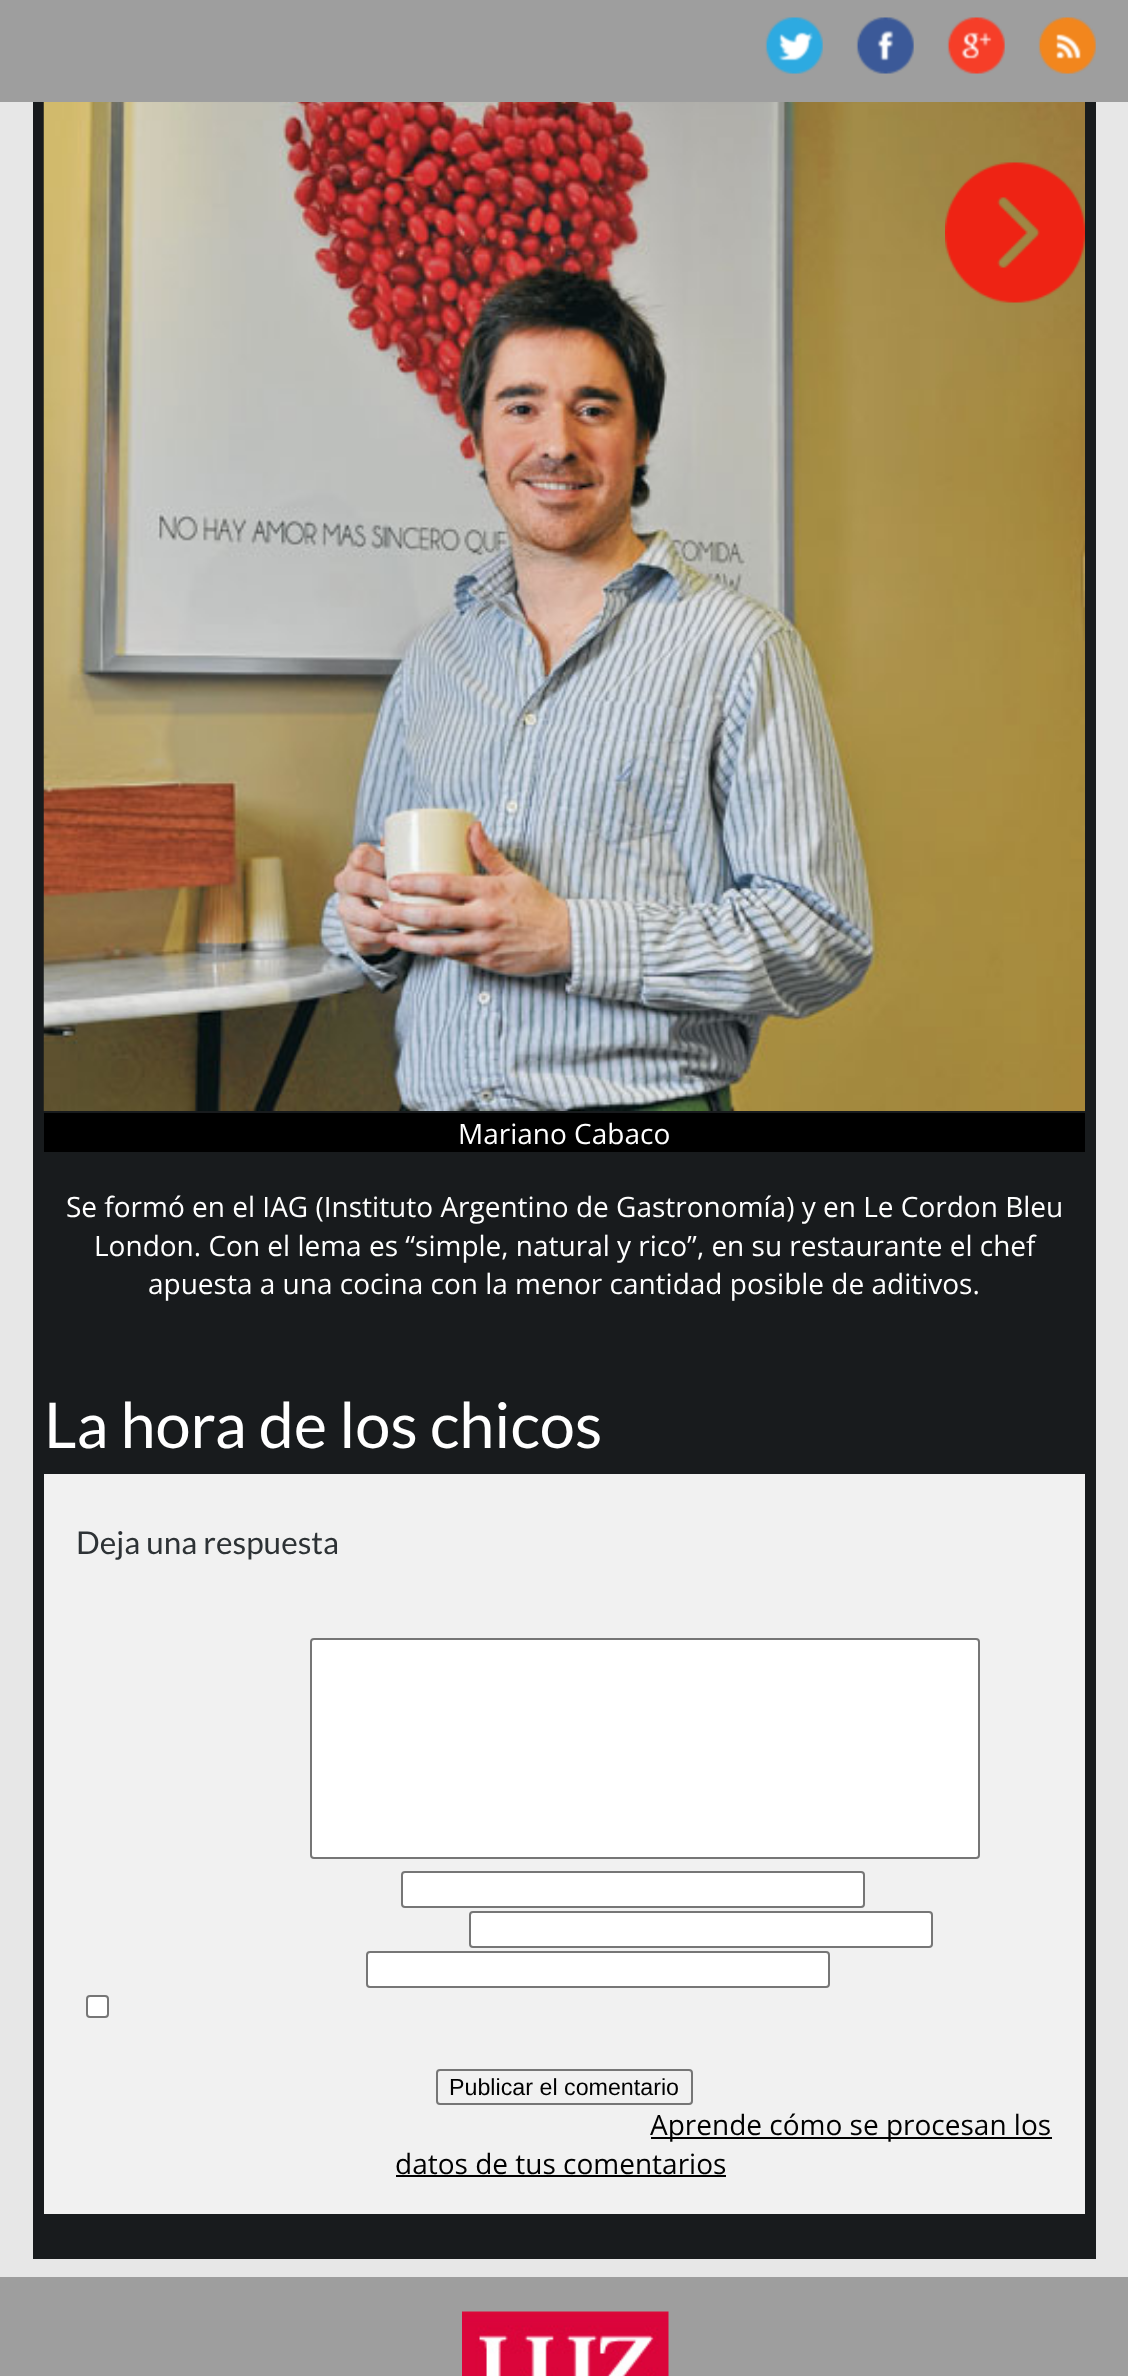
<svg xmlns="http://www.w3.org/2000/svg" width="1128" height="2376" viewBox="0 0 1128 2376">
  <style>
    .t1 { font: 28px Open Sans; fill: #fff; }
    .t2 { font: 63px Lato; fill: #fff; }
    .t3 { font: 31.5px Lato; fill: #2d3235; }
    .t4 { font: 23.25px Liberation Sans; fill: #000; }
    .t5 { font: 28px Open Sans; fill: #000; }
  </style>
  <rect width="100%" height="100%" fill="#e7e7e7"/>
  <rect x="0" y="0" width="1128" height="102" fill="#9e9e9e"/>
  <image x="765" y="17" width="58" height="57" href="images/1.png"/>
  <image x="856" y="17" width="58" height="57" href="images/2.png"/>
  <image x="947" y="17" width="58" height="57" href="images/3.png"/>
  <image x="1038" y="17" width="58" height="57" href="images/4.png"/>
  <rect x="33" y="102" width="1063" height="2157" fill="#181b1d"/>
  <image x="43" y="102" width="1042" height="1009" href="images/6.png"/>
  <image x="945" y="162" width="140" height="141" href="images/5.png"/>
  <rect x="44" y="1113" width="1041" height="39" fill="#000"/>
  <text x="458" y="1144" class="t1">Mariano Cabaco</text>
  <text x="66" y="1217" class="t1">Se formó en el IAG (Instituto Argentino de Gastronomía) y en Le Cordon Bleu</text>
  <text x="94" y="1256" class="t1">London. Con el lema es “simple, natural y rico”, en su restaurante el chef</text>
  <text x="148" y="1294" class="t1">apuesta a una cocina con la menor cantidad posible de aditivos.</text>
  <text x="44" y="1448" class="t2">La hora de los chicos</text>
  <rect x="44" y="1474" width="1041" height="740" fill="#f1f1f1"/>
  <text x="76" y="1554" class="t3">Deja una respuesta</text>
  <rect x="311" y="1639" width="668" height="219" rx="3" fill="#fff" stroke="#767676" stroke-width="2"/>
  <rect x="402" y="1872" width="462" height="35" rx="3" fill="#fff" stroke="#767676" stroke-width="2"/>
  <rect x="470" y="1912" width="462" height="35" rx="3" fill="#fff" stroke="#767676" stroke-width="2"/>
  <rect x="367" y="1952" width="462" height="35" rx="3" fill="#fff" stroke="#767676" stroke-width="2"/>
  <rect x="87" y="1996" width="21" height="21" rx="3" fill="#fff" stroke="#767676" stroke-width="2"/>
  <rect x="437" y="2070" width="255" height="34" rx="3" fill="none" stroke="#767676" stroke-width="2"/>
  <text x="449" y="2095" class="t4">Publicar el comentario</text>
  <rect x="651" y="2137" width="401" height="2" fill="#000"/>
  <text x="650" y="2135" class="t5">Aprende cómo se procesan los</text>
  <text x="395" y="2174" class="t5">datos de tus comentarios</text>
  <rect x="396" y="2175" width="330" height="2" fill="#000"/>
  <rect x="0" y="2277" width="1128" height="99" fill="#9e9e9e"/>
  <image x="462" y="2311" width="207" height="65" href="images/7.png"/>
</svg>
